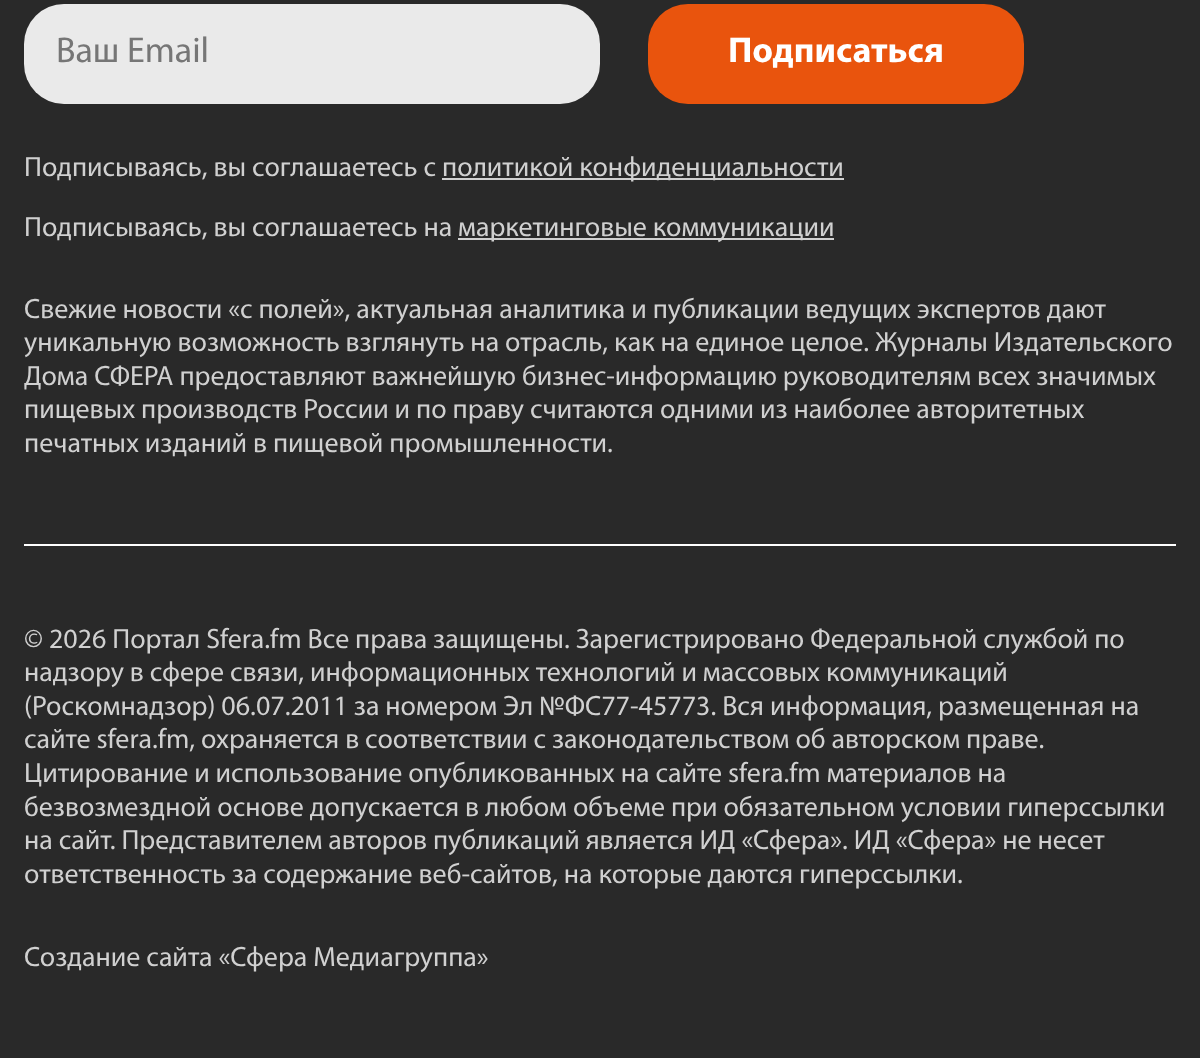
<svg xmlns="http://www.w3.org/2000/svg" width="1200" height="1058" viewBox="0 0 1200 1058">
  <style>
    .t1 { font: 36px Myriad; fill: #767676; }
    .t2 { font: bold 36px Myriad; fill: #fff; }
    .t3 { font: 28px Myriad; fill: #d0d0d0; }
  </style>
  <rect width="100%" height="100%" fill="#292929"/>
  <rect x="24" y="4" width="576" height="100" rx="40" fill="#eaeaea"/>
  <text x="56" y="62" class="t1">Ваш Email</text>
  <rect x="648" y="4" width="376" height="100" rx="40" fill="#e9540d"/>
  <text x="728" y="62" class="t2">Подписаться</text>
  <text x="24" y="176" class="t3">Подписываясь, вы соглашаетесь c</text>
  <rect x="442" y="178" width="402" height="2" fill="#d0d0d0"/>
  <text x="442" y="176" class="t3">политикой конфиденциальности</text>
  <text x="24" y="236" class="t3">Подписываясь, вы соглашаетесь на</text>
  <rect x="458" y="238" width="376" height="2" fill="#d0d0d0"/>
  <text x="458" y="236" class="t3">маркетинговые коммуникации</text>
  <text x="24" y="318" class="t3">Свежие новости «с полей», актуальная аналитика и публикации ведущих экспертов дают</text>
  <text x="24" y="351" class="t3">уникальную возможность взглянуть на отрасль, как на единое целое. Журналы Издательского</text>
  <text x="24" y="385" class="t3">Дома СФЕРА предоставляют важнейшую бизнес-информацию руководителям всех значимых</text>
  <text x="24" y="418" class="t3">пищевых производств России и по праву считаются одними из наиболее авторитетных</text>
  <text x="24" y="452" class="t3">печатных изданий в пищевой промышленности.</text>
  <rect x="24" y="544" width="1152" height="2" fill="#fff"/>
  <text x="24" y="648" class="t3">© 2026 Портал Sfera.fm Все права защищены. Зарегистрировано Федеральной службой по</text>
  <text x="24" y="681" class="t3">надзору в сфере связи, информационных технологий и массовых коммуникаций</text>
  <text x="24" y="715" class="t3">(Роскомнадзор) 06.07.2011 за номером Эл №ФС77-45773. Вся информация, размещенная на</text>
  <text x="24" y="748" class="t3">сайте sfera.fm, охраняется в соответствии с законодательством об авторском праве.</text>
  <text x="24" y="782" class="t3">Цитирование и использование опубликованных на сайте sfera.fm материалов на</text>
  <text x="24" y="816" class="t3">безвозмездной основе допускается в любом объеме при обязательном условии гиперссылки</text>
  <text x="24" y="849" class="t3">на сайт. Представителем авторов публикаций является ИД «Сфера». ИД «Сфера» не несет</text>
  <text x="24" y="883" class="t3">ответственность за содержание веб-сайтов, на которые даются гиперссылки.</text>
  <text x="24" y="966" class="t3">Создание сайта «Сфера Медиагруппа»</text>
</svg>
